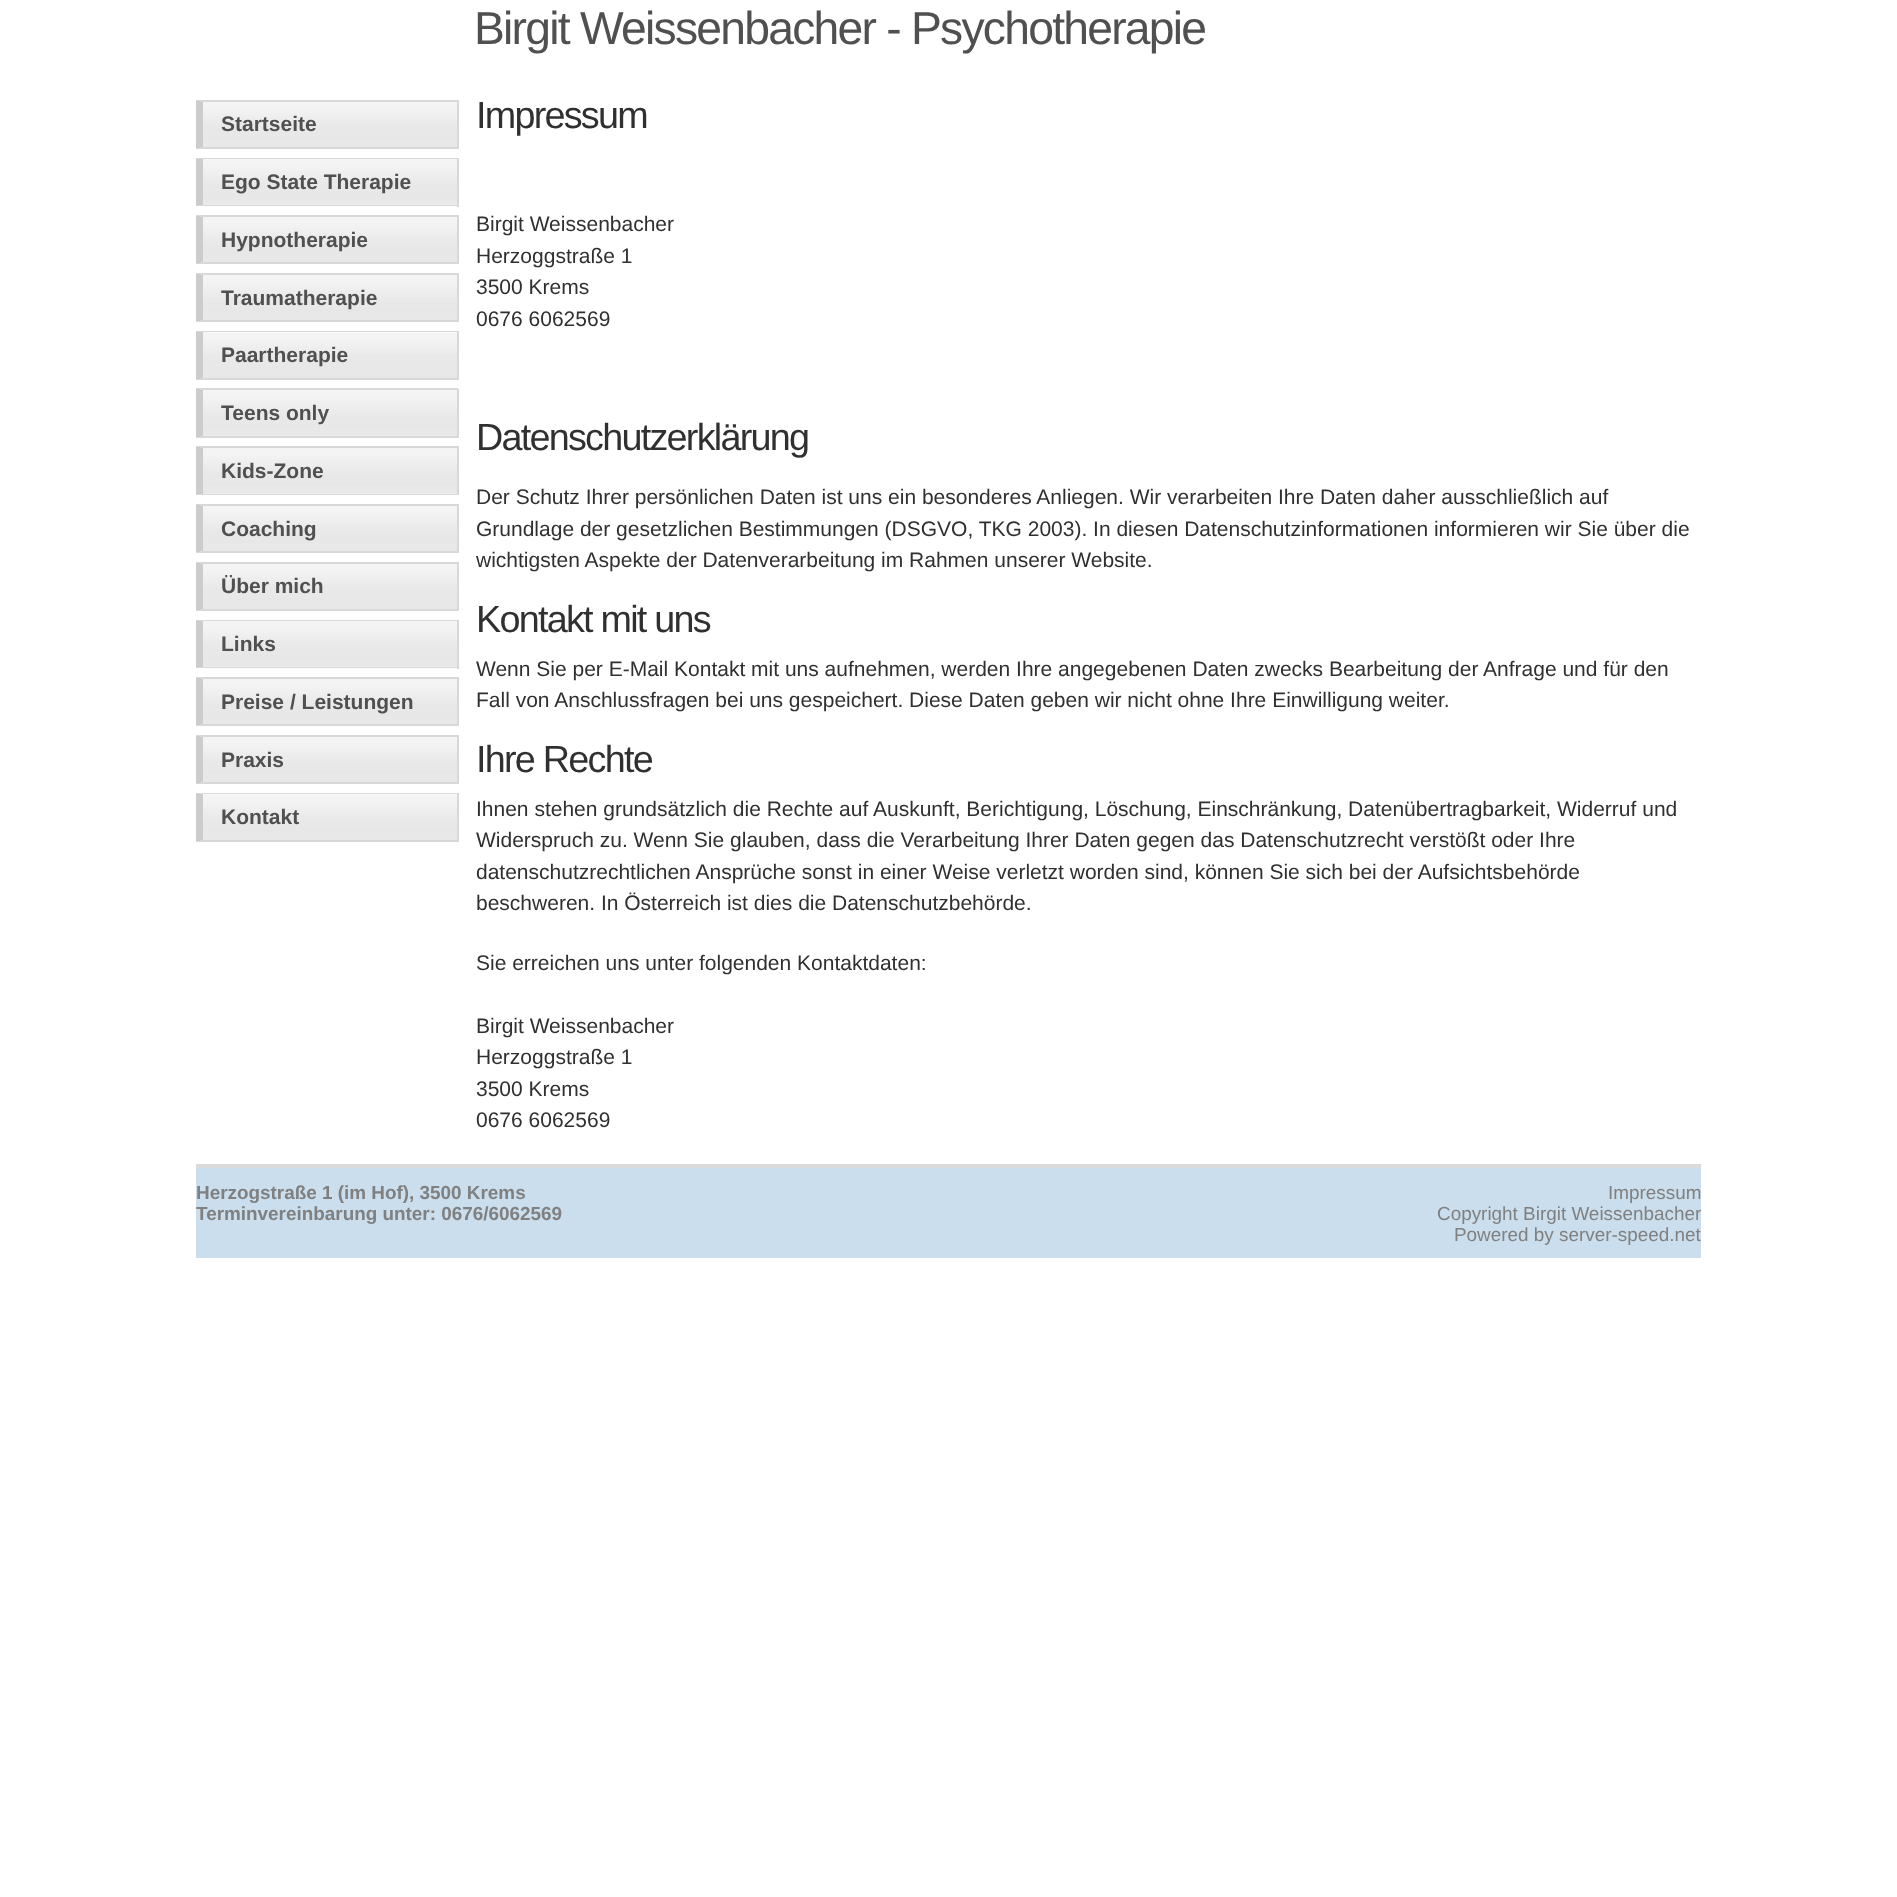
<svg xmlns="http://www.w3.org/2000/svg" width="1897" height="1897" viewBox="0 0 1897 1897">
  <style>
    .t1 { font: 46.25px Liberation Sans; letter-spacing: -1.75px; fill: #505050; }
    .t2 { font: bold 21px Liberation Sans; fill: #505050; }
    .t3 { font: 37.75px Liberation Sans; letter-spacing: -1.75px; fill: #303030; }
    .t4 { font: 21px Liberation Sans; fill: #303030; }
    .t5 { font: bold 18.9px Liberation Sans; fill: #808080; }
    .t6 { font: 18.9px Liberation Sans; fill: #808080; }
  </style>
  <rect width="100%" height="100%" fill="#fff"/>
  <text x="474" y="44" class="t1">Birgit Weissenbacher - Psychotherapie</text>
  <image x="199" y="101" width="258" height="46" href="images/1.png"/>
  <path d="M196 100H458L457 102H203Z" fill="#d8d8d8"/>
  <rect x="457" y="100" width="2" height="49" fill="#d8d8d8"/>
  <path d="M458 149H196L203 147H457Z" fill="#d8d8d8"/>
  <path d="M196 149V100L203 102V147Z" fill="#ccc"/>
  <text x="221" y="131" class="t2">Startseite</text>
  <image x="203" y="159" width="254" height="46" href="images/2.png"/>
  <path d="M196 158H458L457 159H203Z" fill="#d8d8d8"/>
  <rect x="457" y="158" width="2" height="49" fill="#d8d8d8"/>
  <path d="M458 206H196L203 205H457Z" fill="#d8d8d8"/>
  <path d="M196 206V158L203 159V205Z" fill="#ccc"/>
  <text x="221" y="189" class="t2">Ego State Therapie</text>
  <image x="199" y="217" width="258" height="46" href="images/3.png"/>
  <path d="M196 215H458L457 217H203Z" fill="#d8d8d8"/>
  <rect x="457" y="215" width="2" height="49" fill="#d8d8d8"/>
  <path d="M458 264H196L203 262H457Z" fill="#d8d8d8"/>
  <path d="M196 264V215L203 217V262Z" fill="#ccc"/>
  <text x="221" y="247" class="t2">Hypnotherapie</text>
  <image x="199" y="275" width="258" height="46" href="images/4.png"/>
  <path d="M196 273H458L457 275H203Z" fill="#d8d8d8"/>
  <rect x="457" y="273" width="2" height="49" fill="#d8d8d8"/>
  <path d="M458 322H196L203 320H457Z" fill="#d8d8d8"/>
  <path d="M196 322V273L203 275V320Z" fill="#ccc"/>
  <text x="221" y="305" class="t2">Traumatherapie</text>
  <image x="203" y="332" width="254" height="46" href="images/5.png"/>
  <path d="M196 331H458L457 332H203Z" fill="#d8d8d8"/>
  <rect x="457" y="331" width="2" height="49" fill="#d8d8d8"/>
  <path d="M458 380H196L203 378H457Z" fill="#d8d8d8"/>
  <path d="M196 380V331L203 332V378Z" fill="#ccc"/>
  <text x="221" y="362" class="t2">Paartherapie</text>
  <image x="203" y="390" width="254" height="46" href="images/2.png"/>
  <path d="M196 388H458L457 390H203Z" fill="#d8d8d8"/>
  <rect x="457" y="389" width="2" height="49" fill="#d8d8d8"/>
  <path d="M458 438H196L203 436H457Z" fill="#d8d8d8"/>
  <path d="M196 438V388L203 390V436Z" fill="#ccc"/>
  <text x="221" y="420" class="t2">Teens only</text>
  <rect x="203" y="493" width="254" height="1" fill="#f4f4f4"/>
  <image x="203" y="448" width="254" height="46" href="images/6.png"/>
  <path d="M196 446H458L457 448H203Z" fill="#d8d8d8"/>
  <rect x="457" y="446" width="2" height="49" fill="#d8d8d8"/>
  <path d="M458 495H196L203 494H457Z" fill="#d8d8d8"/>
  <path d="M196 495V446L203 448V494Z" fill="#ccc"/>
  <text x="221" y="478" class="t2">Kids-Zone</text>
  <image x="199" y="506" width="258" height="46" href="images/4.png"/>
  <path d="M196 504H458L457 506H203Z" fill="#d8d8d8"/>
  <rect x="457" y="504" width="2" height="49" fill="#d8d8d8"/>
  <path d="M458 553H196L203 551H457Z" fill="#d8d8d8"/>
  <path d="M196 553V504L203 506V551Z" fill="#ccc"/>
  <text x="221" y="536" class="t2">Coaching</text>
  <image x="199" y="563" width="258" height="46" href="images/1.png"/>
  <path d="M196 562H458L457 564H203Z" fill="#d8d8d8"/>
  <rect x="457" y="562" width="2" height="49" fill="#d8d8d8"/>
  <path d="M458 611H196L203 609H457Z" fill="#d8d8d8"/>
  <path d="M196 611V562L203 564V609Z" fill="#ccc"/>
  <text x="221" y="593" class="t2">Über mich</text>
  <image x="203" y="621" width="254" height="46" href="images/2.png"/>
  <path d="M196 620H458L457 621H203Z" fill="#d8d8d8"/>
  <rect x="457" y="620" width="2" height="49" fill="#d8d8d8"/>
  <path d="M458 668H196L203 667H457Z" fill="#d8d8d8"/>
  <path d="M196 668V620L203 621V667Z" fill="#ccc"/>
  <text x="221" y="651" class="t2">Links</text>
  <image x="199" y="679" width="258" height="46" href="images/3.png"/>
  <path d="M196 677H458L457 679H203Z" fill="#d8d8d8"/>
  <rect x="457" y="677" width="2" height="49" fill="#d8d8d8"/>
  <path d="M458 726H196L203 724H457Z" fill="#d8d8d8"/>
  <path d="M196 726V677L203 679V724Z" fill="#ccc"/>
  <text x="221" y="709" class="t2">Preise / Leistungen</text>
  <image x="199" y="737" width="258" height="46" href="images/4.png"/>
  <path d="M196 735H458L457 737H203Z" fill="#d8d8d8"/>
  <rect x="457" y="735" width="2" height="49" fill="#d8d8d8"/>
  <path d="M458 784H196L203 782H457Z" fill="#d8d8d8"/>
  <path d="M196 784V735L203 737V782Z" fill="#ccc"/>
  <text x="221" y="767" class="t2">Praxis</text>
  <image x="203" y="794" width="254" height="46" href="images/5.png"/>
  <path d="M196 793H458L457 794H203Z" fill="#d8d8d8"/>
  <rect x="457" y="793" width="2" height="49" fill="#d8d8d8"/>
  <path d="M458 842H196L203 840H457Z" fill="#d8d8d8"/>
  <path d="M196 842V793L203 794V840Z" fill="#ccc"/>
  <text x="221" y="824" class="t2">Kontakt</text>
  <text x="476" y="128" class="t3">Impressum</text>
  <text x="476" y="231" class="t4">Birgit Weissenbacher</text>
  <text x="476" y="263" class="t4">Herzoggstraße 1</text>
  <text x="476" y="294" class="t4">3500 Krems</text>
  <text x="476" y="326" class="t4">0676 6062569</text>
  <text x="476" y="450" class="t3">Datenschutzerklärung</text>
  <text x="476" y="504" class="t4">Der Schutz Ihrer persönlichen Daten ist uns ein besonderes Anliegen. Wir verarbeiten Ihre Daten daher ausschließlich auf</text>
  <text x="476" y="536" class="t4">Grundlage der gesetzlichen Bestimmungen (DSGVO, TKG 2003). In diesen Datenschutzinformationen informieren wir Sie über die</text>
  <text x="476" y="567" class="t4">wichtigsten Aspekte der Datenverarbeitung im Rahmen unserer Website.</text>
  <text x="476" y="632" class="t3">Kontakt mit uns</text>
  <text x="476" y="676" class="t4">Wenn Sie per E-Mail Kontakt mit uns aufnehmen, werden Ihre angegebenen Daten zwecks Bearbeitung der Anfrage und für den</text>
  <text x="476" y="707" class="t4">Fall von Anschlussfragen bei uns gespeichert. Diese Daten geben wir nicht ohne Ihre Einwilligung weiter.</text>
  <text x="476" y="772" class="t3">Ihre Rechte</text>
  <text x="476" y="816" class="t4">Ihnen stehen grundsätzlich die Rechte auf Auskunft, Berichtigung, Löschung, Einschränkung, Datenübertragbarkeit, Widerruf und</text>
  <text x="476" y="847" class="t4">Widerspruch zu. Wenn Sie glauben, dass die Verarbeitung Ihrer Daten gegen das Datenschutzrecht verstößt oder Ihre</text>
  <text x="476" y="879" class="t4">datenschutzrechtlichen Ansprüche sonst in einer Weise verletzt worden sind, können Sie sich bei der Aufsichtsbehörde</text>
  <text x="476" y="910" class="t4">beschweren. In Österreich ist dies die Datenschutzbehörde.</text>
  <text x="476" y="970" class="t4">Sie erreichen uns unter folgenden Kontaktdaten:</text>
  <text x="476" y="1033" class="t4">Birgit Weissenbacher</text>
  <text x="476" y="1064" class="t4">Herzoggstraße 1</text>
  <text x="476" y="1096" class="t4">3500 Krems</text>
  <text x="476" y="1127" class="t4">0676 6062569</text>
  <rect x="196" y="1168" width="1505" height="90" fill="#cadeed"/>
  <rect x="196" y="1164" width="1505" height="4" fill="#dadada"/>
  <text x="196" y="1199" class="t5">Herzogstraße 1 (im Hof), 3500 Krems</text>
  <text x="196" y="1220" class="t5">Terminvereinbarung unter: 0676/6062569</text>
  <text x="1608" y="1199" class="t6">Impressum</text>
  <text x="1437" y="1220" class="t6">Copyright Birgit Weissenbacher</text>
  <text x="1454" y="1241" class="t6">Powered by server-speed.net</text>
</svg>
